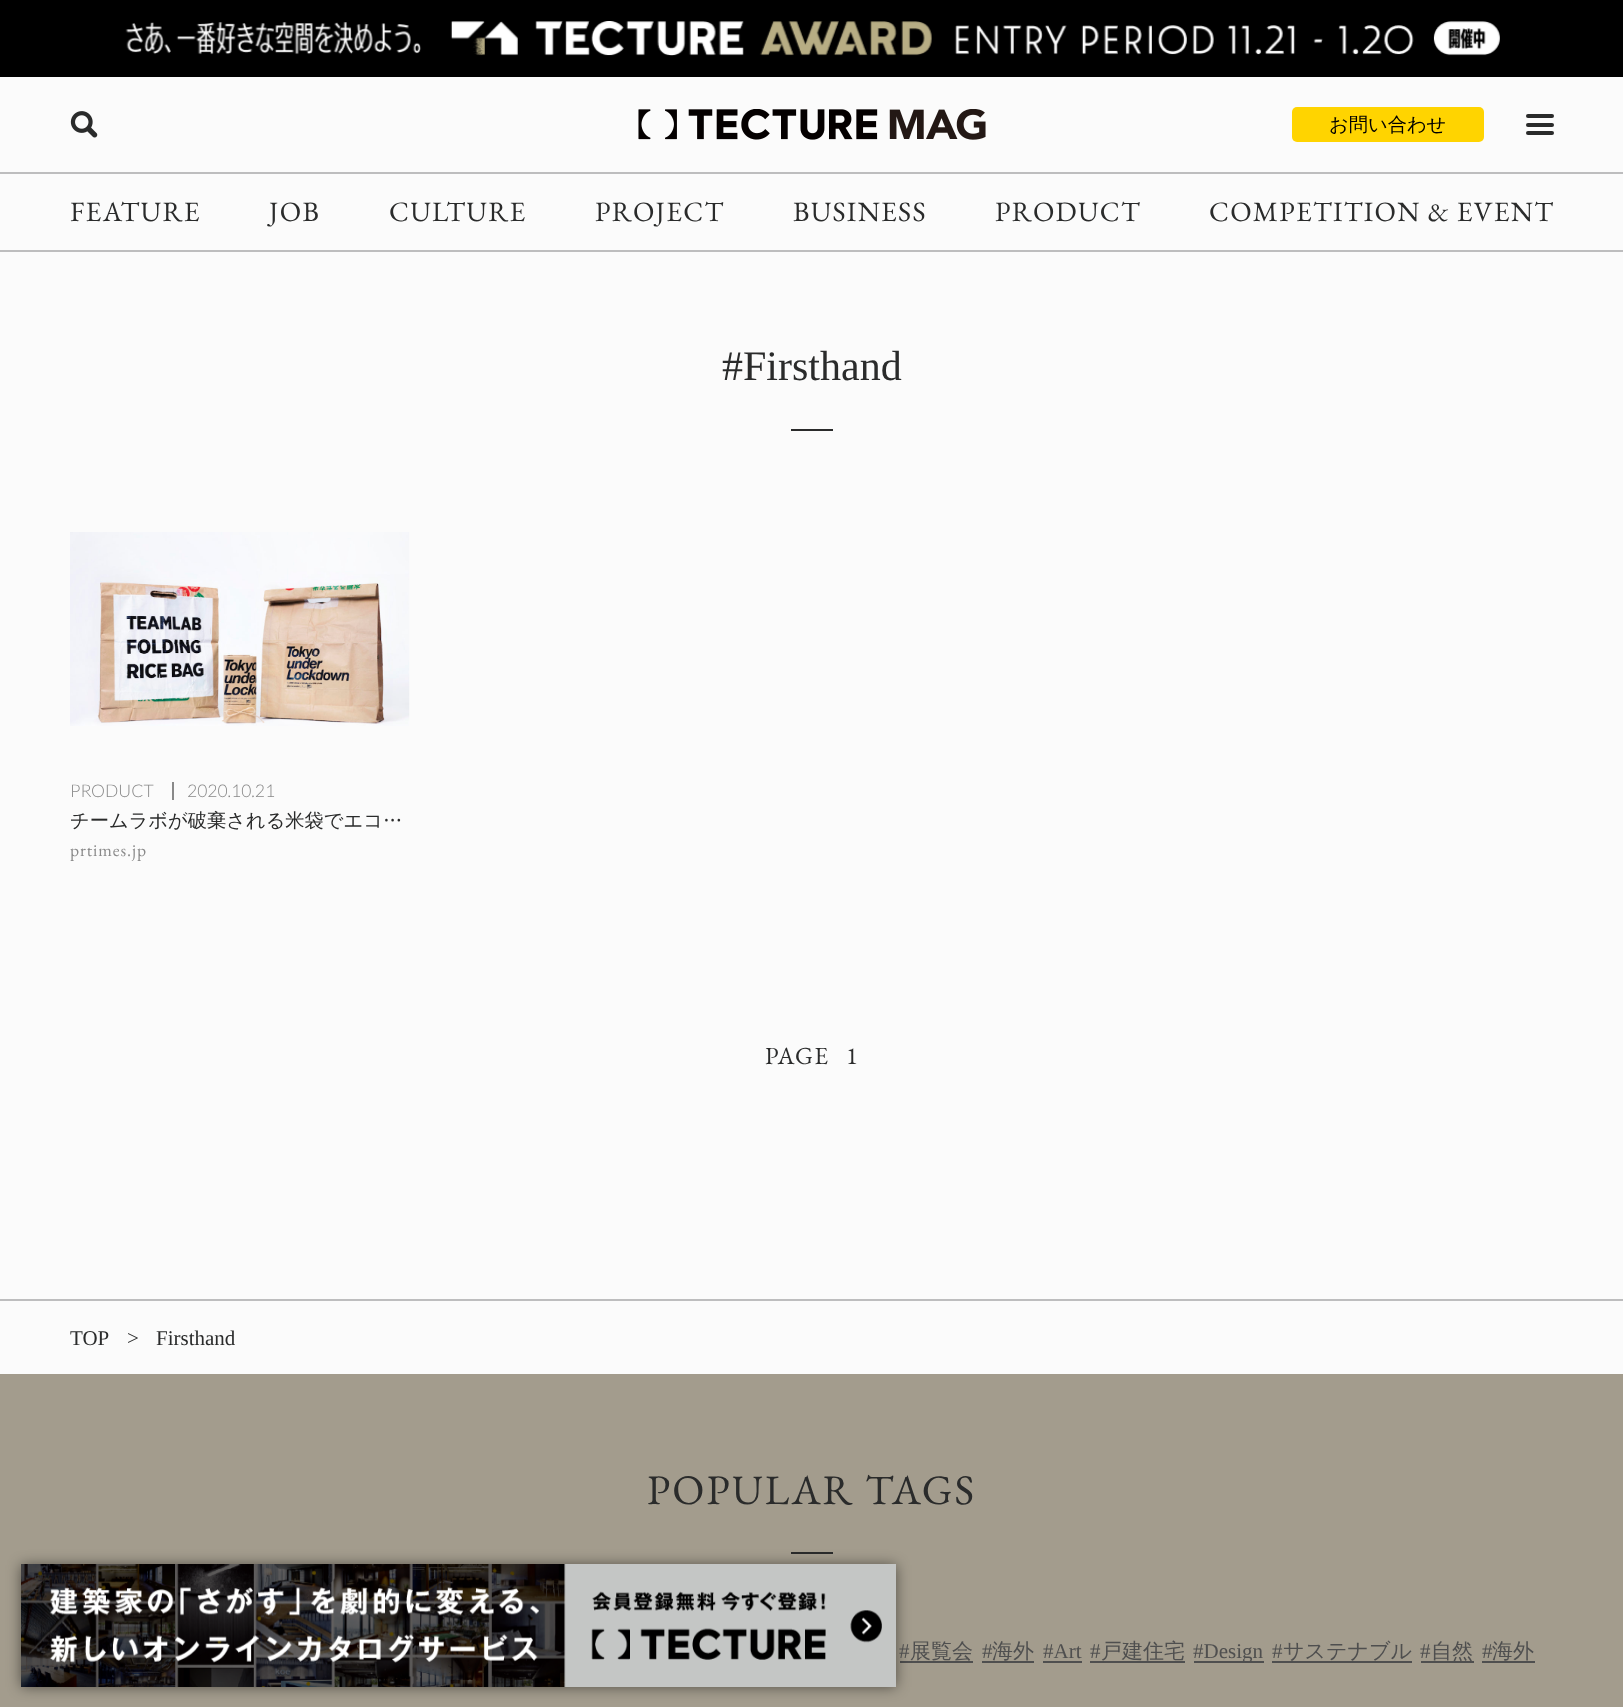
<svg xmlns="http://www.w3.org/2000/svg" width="1623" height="1707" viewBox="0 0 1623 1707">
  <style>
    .t1 { font: 500 19.25px WenQuanYi Zen Hei; fill: #000; }
    .t2 { font: 28px EB Garamond; letter-spacing: 1.25px; fill: #2a2b2b; }
    .t3 { font: 42px Liberation Serif; fill: #2a2b2b; }
    .t4 { font: 300 17.5px Lato; fill: #898989; }
    .t5 { font: 500 19.25px WenQuanYi Zen Hei; fill: #2a2b2b; }
    .t6 { font: 17.5px EB Garamond; letter-spacing: 0.9px; fill: #898989; }
    .t7 { font: 24.5px EB Garamond; letter-spacing: 1.25px; fill: #2a2b2b; }
    .t8 { font: 21px Liberation Serif; fill: #2a2b2b; }
    .t9 { font: 42px EB Garamond; letter-spacing: 2.1px; fill: #2a2b2b; }
    .t10 { font: 21px Liberation Serif; fill: #4f4f4f; }
    .t11 { font: 500 21px WenQuanYi Zen Hei; fill: #4f4f4f; }
  </style>
  <rect width="100%" height="100%" fill="#fbfbfb"/>
  <rect x="0" y="0" width="1623" height="77" fill="#000"/>
  <image x="125" y="21" width="1375" height="35" href="images/1.png"/>
  <rect x="0" y="172" width="1623" height="2" fill="#bdbdbe"/>
  <image x="70" y="111" width="28" height="27" href="images/2.png"/>
  <image x="638" y="109" width="348" height="31" href="images/3.png"/>
  <rect x="1292" y="107" width="192" height="35" rx="5" fill="#ffd400"/>
  <text x="1329" y="131" class="t1">お問い合わせ</text>
  <rect x="1526" y="114" width="28" height="4" rx="2" fill="#2a2b2b"/>
  <rect x="1526" y="123" width="28" height="4" rx="2" fill="#2a2b2b"/>
  <rect x="1526" y="131" width="28" height="4" rx="2" fill="#2a2b2b"/>
  <rect x="0" y="250" width="1623" height="2" fill="#bdbdbe"/>
  <text x="70" y="221" class="t2">FEATURE</text>
  <text x="269" y="221" class="t2">JOB</text>
  <text x="389" y="221" class="t2">CULTURE</text>
  <text x="595" y="221" class="t2">PROJECT</text>
  <text x="793" y="221" class="t2">BUSINESS</text>
  <text x="995" y="221" class="t2">PRODUCT</text>
  <text x="1209" y="221" class="t2">COMPETITION &amp; EVENT</text>
  <text x="722" y="380" class="t3">#Firsthand</text>
  <rect x="791" y="429" width="42" height="2" fill="#2a2b2b"/>
  <image x="70" y="532" width="340" height="194" href="images/4.png"/>
  <text x="70" y="797" class="t4">PRODUCT</text>
  <rect x="172" y="782" width="2" height="18" fill="#898989"/>
  <text x="187" y="797" class="t4">2020.10.21</text>
  <text x="70" y="827" class="t5">チームラボが破棄される米袋でエコ…</text>
  <text x="70" y="856" class="t6">prtimes.jp</text>
  <text x="765" y="1064" class="t7">PAGE</text>
  <text x="846" y="1064" class="t7">1</text>
  <rect x="0" y="1299" width="1623" height="2" fill="#bdbdbe"/>
  <text x="70" y="1345" class="t8">TOP</text>
  <text x="127" y="1345" class="t8">&gt;</text>
  <text x="156" y="1345" class="t8">Firsthand</text>
  <rect x="0" y="1374" width="1623" height="333" fill="#a39c8d"/>
  <rect x="791" y="1552" width="42" height="2" fill="#2a2b2b"/>
  <rect x="900" y="1661" width="73" height="2" fill="#4f4f4f"/>
  <rect x="21" y="1565" width="875" height="122" fill="#00000080" filter="blur(7px)"/>
  <image x="21" y="1564" width="875" height="123" href="images/5.png"/>
  <text x="647" y="1504" class="t9">POPULAR TAGS</text>
  <text x="899" y="1658" class="t10">#</text>
  <text x="910" y="1658" class="t11">展覧会</text>
  <text x="982" y="1658" class="t10">#</text>
  <rect x="982" y="1661" width="52" height="2" fill="#4f4f4f"/>
  <text x="992" y="1658" class="t11">海外</text>
  <text x="1043" y="1658" class="t10">#Art</text>
  <rect x="1043" y="1661" width="39" height="2" fill="#4f4f4f"/>
  <text x="1090" y="1658" class="t10">#</text>
  <rect x="1090" y="1661" width="95" height="2" fill="#4f4f4f"/>
  <text x="1101" y="1658" class="t11">戸建住宅</text>
  <rect x="1194" y="1661" width="70" height="2" fill="#4f4f4f"/>
  <text x="1193" y="1658" class="t10">#Design</text>
  <text x="1272" y="1658" class="t10">#</text>
  <rect x="1272" y="1661" width="140" height="2" fill="#4f4f4f"/>
  <text x="1283" y="1658" class="t11">サステナブル</text>
  <text x="1420" y="1658" class="t10">#</text>
  <rect x="1421" y="1661" width="53" height="2" fill="#4f4f4f"/>
  <text x="1431" y="1658" class="t11">自然</text>
  <text x="1482" y="1658" class="t10">#</text>
  <rect x="1482" y="1661" width="53" height="2" fill="#4f4f4f"/>
  <text x="1492" y="1658" class="t11">海外</text>
</svg>
